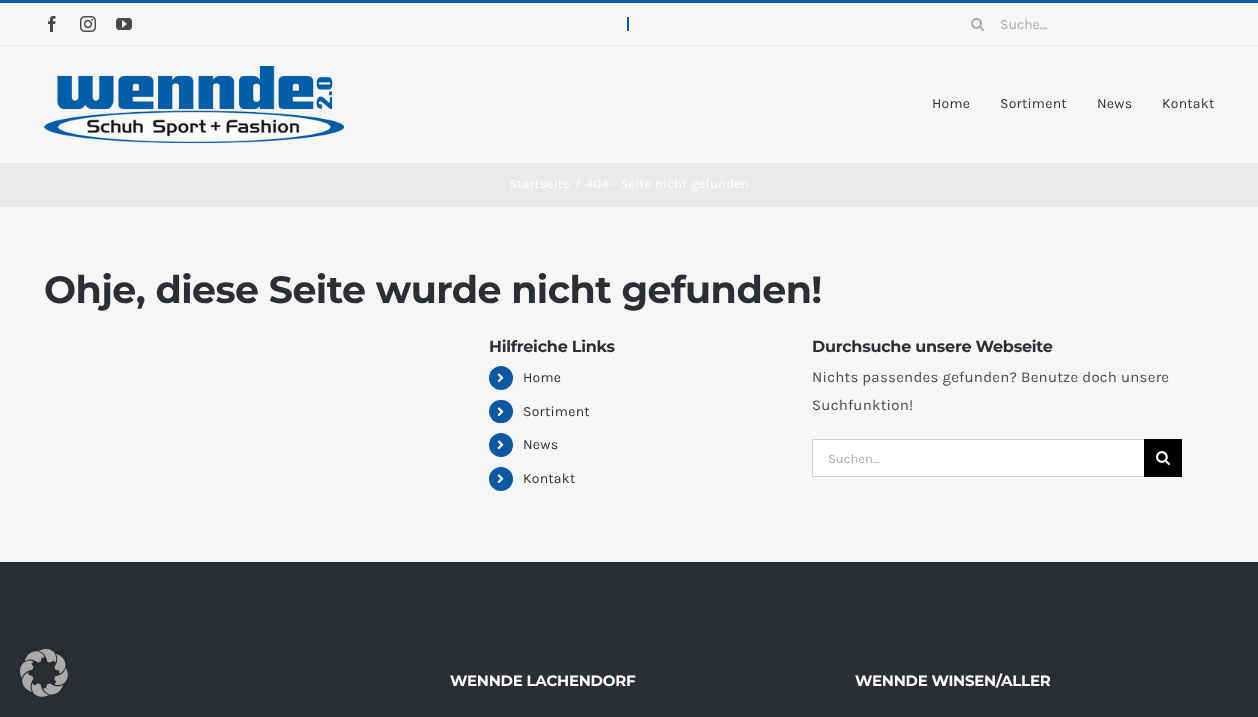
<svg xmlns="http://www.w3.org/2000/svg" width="1258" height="717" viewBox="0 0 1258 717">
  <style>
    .t1 { font: 14px Karla; fill: #aaa; }
    .t2 { font: 14px Karla; letter-spacing: 0.25px; fill: #2b2e32; }
    .t3 { font: 13px Karla; letter-spacing: 0.25px; fill: #fff; }
    .t4 { font: 100 38px Montserrat; letter-spacing: -0.55px; fill: #2b2e32; }
    .t5 { font: 100 16px Montserrat; letter-spacing: -0.25px; fill: #2b2e32; }
    .t6 { font: 15px Karla; letter-spacing: 0.25px; fill: #494949; }
    .t7 { font: 13px Karla; fill: #aaa; }
    .t8 { font: 100 15px Montserrat; letter-spacing: -0.25px; fill: #fff; }
  </style>
  <rect width="100%" height="100%" fill="#f6f6f6"/>
  <rect x="0" y="562" width="1258" height="155" fill="#2b2e32"/>
  <image x="20" y="649" width="48" height="48" href="images/1.png"/>
  <rect x="0" y="0" width="1258" height="3" fill="#0d58a2"/>
  <image x="48" y="16" width="8" height="16" href="images/2.png"/>
  <image x="80" y="16" width="16" height="16" href="images/3.png"/>
  <image x="116" y="18" width="16" height="12" href="images/4.png"/>
  <rect x="627" y="17" width="2" height="14" fill="#0d58a2"/>
  <image x="971" y="17" width="13" height="14" href="images/5.png"/>
  <text x="1000" y="29" class="t1">Suche...</text>
  <rect x="0" y="45" width="1258" height="1" fill="#eaeaea"/>
  <image x="44" y="66" width="300" height="77" href="images/6.png"/>
  <text x="932" y="108" class="t2">Home</text>
  <text x="1000" y="108" class="t2">Sortiment</text>
  <text x="1097" y="108" class="t2">News</text>
  <text x="1162" y="108" class="t2">Kontakt</text>
  <rect x="0" y="163" width="1258" height="44" fill="#eaeaea"/>
  <text x="509" y="188" class="t3">Startseite</text>
  <text x="575" y="188" class="t3">/</text>
  <text x="586" y="188" class="t3">404 - Seite nicht gefunden</text>
  <text x="44" y="303" class="t4">Ohje, diese Seite wurde nicht gefunden!</text>
  <text x="489" y="352" class="t5">Hilfreiche Links</text>
  <circle cx="501" cy="378" r="12" fill="#0d58a2"/>
  <image x="497" y="373" width="7" height="10" href="images/7.png"/>
  <text x="523" y="382" class="t2">Home</text>
  <rect x="489" y="400" width="24" height="23" rx="11.5" fill="#0d58a2"/>
  <image x="497" y="407" width="7" height="10" href="images/7.png"/>
  <text x="523" y="416" class="t2">Sortiment</text>
  <circle cx="501" cy="445" r="12" fill="#0d58a2"/>
  <image x="497" y="440" width="7" height="10" href="images/7.png"/>
  <text x="523" y="449" class="t2">News</text>
  <circle cx="501" cy="479" r="12" fill="#0d58a2"/>
  <image x="497" y="474" width="7" height="10" href="images/7.png"/>
  <text x="523" y="483" class="t2">Kontakt</text>
  <text x="812" y="352" class="t5">Durchsuche unsere Webseite</text>
  <text x="812" y="382" class="t6">Nichts passendes gefunden? Benutze doch unsere</text>
  <text x="812" y="410" class="t6">Suchfunktion!</text>
  <rect x="813" y="440" width="331" height="36" fill="#fff"/>
  <rect x="812" y="439" width="332" height="1" fill="#d1d1d1"/>
  <rect x="812" y="476" width="332" height="1" fill="#d1d1d1"/>
  <rect x="812" y="439" width="1" height="38" fill="#d1d1d1"/>
  <text x="828" y="463" class="t7">Suchen...</text>
  <rect x="1144" y="439" width="38" height="38" fill="#000"/>
  <image x="1156" y="451" width="14" height="14" href="images/8.png"/>
  <text x="450" y="686" class="t8">WENNDE LACHENDORF</text>
  <text x="855" y="686" class="t8">WENNDE WINSEN/ALLER</text>
</svg>
